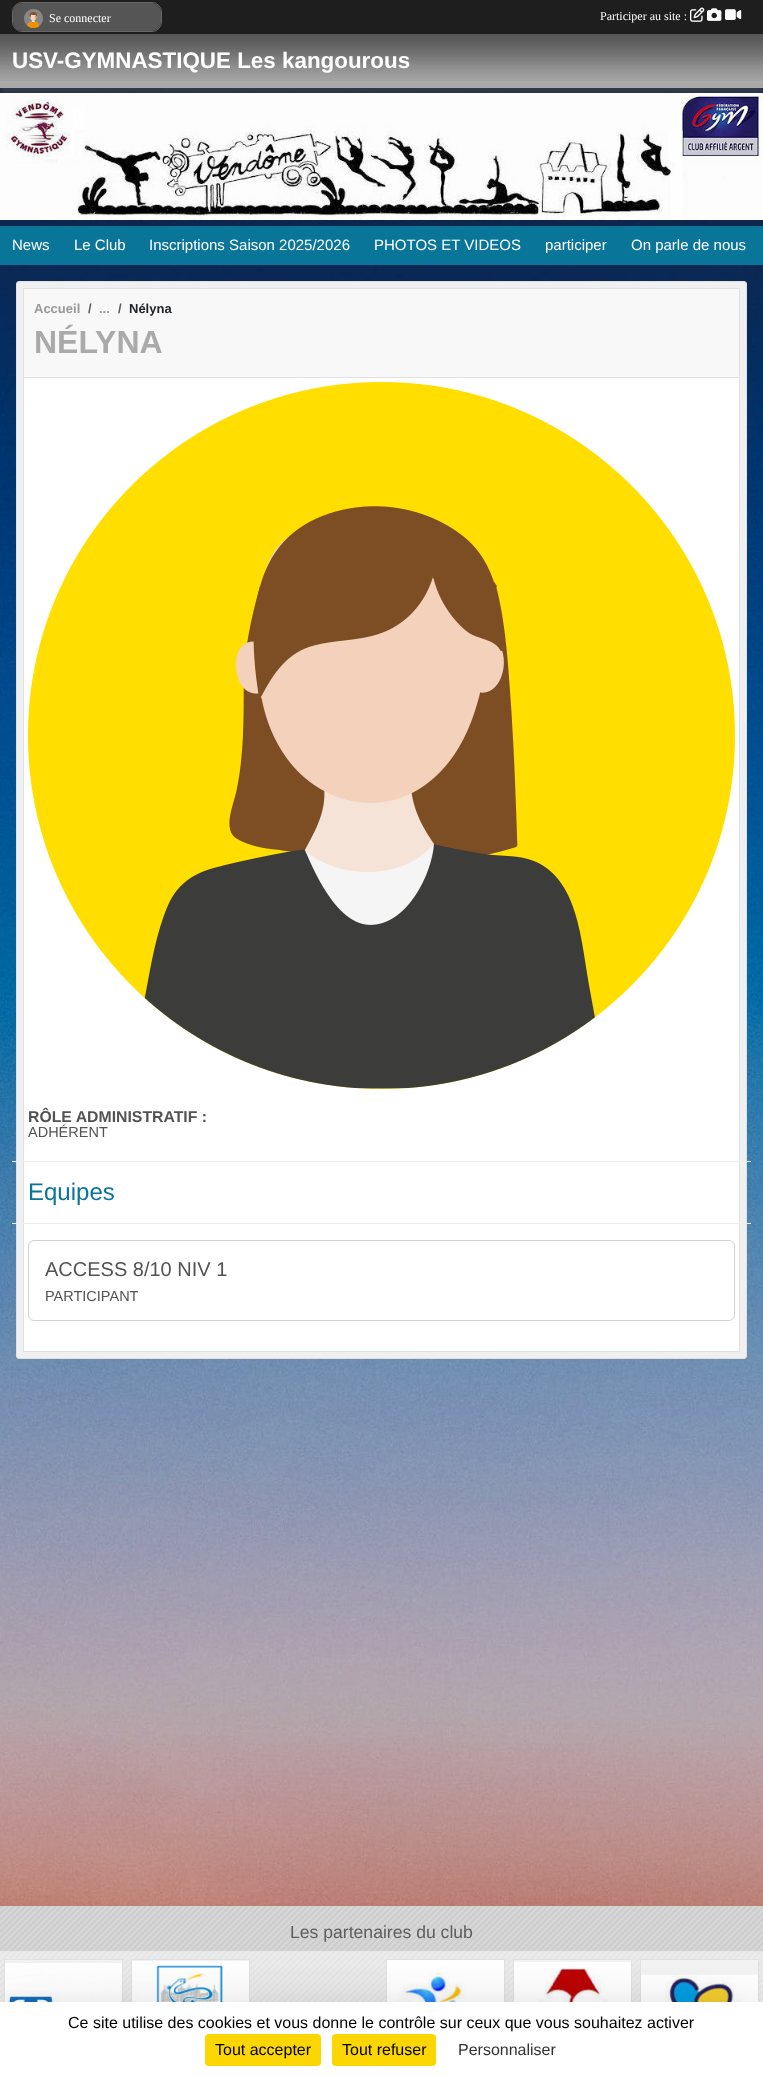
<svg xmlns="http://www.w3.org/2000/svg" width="763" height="2076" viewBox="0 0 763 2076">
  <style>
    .t1 { font: 12px Liberation Serif; fill: #fff; }
    .t2 { font: bold 22.4px Liberation Sans; fill: #fff; }
    .t3 { font: 15px Liberation Sans; fill: #fff; }
    .t4 { font: bold 13px Liberation Sans; fill: #999; }
    .t5 { font: bold 13px Liberation Sans; fill: #575a5d; }
    .t6 { font: bold 13px Liberation Sans; fill: #212529; }
    .t7 { font: bold 32px Liberation Sans; fill: #aaa; }
    .t8 { font: bold 15.8px Liberation Sans; fill: #535353; }
    .t9 { font: 14.5px Liberation Sans; fill: #535353; }
    .t10 { font: 24px Liberation Sans; fill: #097599; }
    .t11 { font: 20px Liberation Sans; fill: #535353; }
    .t12 { font: 17.6px Liberation Sans; fill: #5e5e5e; }
    .t13 { font: 16px Liberation Sans; fill: #000; }
    .t14 { font: 16px Liberation Sans; fill: #333; }
  </style>
  <rect width="100%" height="100%" fill="#fff"/>
  <image x="0" y="88" width="763" height="1818" href="images/1.png"/>
  <rect x="0" y="41" width="763" height="54" fill="#50505080" filter="blur(2.5px)"/>
  <rect x="0" y="0" width="763" height="34" fill="#1e1e1e"/>
  <rect x="12.5" y="2.5" width="149" height="29" rx="9.5" fill="none" stroke="#666"/>
  <rect x="13" y="3" width="148" height="28" rx="9" fill="#555"/>
  <image x="24" y="9" width="19" height="19" href="images/2.png"/>
  <text x="49" y="22" class="t1">Se connecter</text>
  <text x="600" y="20" class="t1">Participer au site :</text>
  <image x="690" y="7" width="15" height="15" href="images/3.png"/>
  <image x="707" y="8" width="15" height="13" href="images/4.png"/>
  <image x="725" y="9" width="17" height="11" href="images/5.png"/>
  <rect x="0" y="34" width="763" height="54" fill="#aaa"/>
  <image x="0" y="34" width="763" height="47" href="images/6.png"/>
  <text x="12" y="68" class="t2">USV-GYMNASTIQUE Les kangourous</text>
  <image x="0" y="93" width="763" height="127" href="images/7.png"/>
  <rect x="0" y="226" width="763" height="39" fill="#097599"/>
  <text x="12" y="250" class="t3">News</text>
  <text x="74" y="250" class="t3">Le Club</text>
  <text x="149" y="250" class="t3">Inscriptions Saison 2025/2026</text>
  <text x="374" y="250" class="t3">PHOTOS ET VIDEOS</text>
  <text x="545" y="250" class="t3">participer</text>
  <text x="631" y="250" class="t3">On parle de nous</text>
  <rect x="16.5" y="281.5" width="730" height="1077" rx="2.5" fill="#f0f0f0" stroke="#e1e1e1"/>
  <rect x="24" y="378" width="715" height="973" fill="#fff"/>
  <rect x="23.5" y="288.5" width="716" height="1063" fill="none" stroke="#e1e1e1"/>
  <rect x="24" y="289" width="715" height="88" fill="#f8f8f8"/>
  <rect x="24" y="377" width="715" height="1" fill="#e1e1e1"/>
  <text x="34" y="313" class="t4">Accueil</text>
  <text x="88" y="313" class="t5">/</text>
  <text x="99" y="313" class="t4">...</text>
  <text x="118" y="313" class="t5">/</text>
  <text x="129" y="313" class="t6">Nélyna</text>
  <text x="34" y="353" class="t7">NÉLYNA</text>
  <image x="28" y="382" width="707" height="707" href="images/8.png"/>
  <text x="28" y="1122" class="t8">RÔLE ADMINISTRATIF :</text>
  <text x="28" y="1137" class="t9">ADHÉRENT</text>
  <rect x="12" y="1161" width="739" height="1" fill="#eee"/>
  <rect x="12" y="1223" width="739" height="1" fill="#eee"/>
  <text x="28" y="1200" class="t10">Equipes</text>
  <rect x="28.5" y="1240.5" width="706" height="80" rx="5.5" fill="none" stroke="#d2d2d2"/>
  <text x="45" y="1276" class="t11">ACCESS 8/10 NIV 1</text>
  <text x="45" y="1301" class="t9">PARTICIPANT</text>
  <image x="0" y="1906" width="763" height="96" href="images/9.png"/>
  <text x="290" y="1938" class="t12">Les partenaires du club</text>
  <rect x="0" y="1951" width="127" height="51" fill="#ffffff80"/>
  <rect x="4.5" y="1959.5" width="118" height="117" fill="none" stroke="#dee2e6"/>
  <image x="5" y="1960" width="117" height="42" href="images/10.png"/>
  <rect x="127" y="1951" width="127" height="51" fill="#ffffff80"/>
  <rect x="131.5" y="1959.5" width="118" height="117" fill="none" stroke="#dee2e6"/>
  <image x="132" y="1960" width="117" height="42" href="images/11.png"/>
  <rect x="254" y="1951" width="128" height="51" fill="#ffffff80"/>
  <rect x="382" y="1951" width="127" height="51" fill="#ffffff80"/>
  <rect x="386.5" y="1959.5" width="118" height="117" fill="none" stroke="#dee2e6"/>
  <image x="387" y="1960" width="117" height="42" href="images/12.png"/>
  <rect x="509" y="1951" width="127" height="51" fill="#ffffff80"/>
  <rect x="513.5" y="1959.5" width="118" height="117" fill="none" stroke="#dee2e6"/>
  <image x="514" y="1960" width="117" height="42" href="images/13.png"/>
  <rect x="636" y="1951" width="127" height="51" fill="#ffffff80"/>
  <rect x="640.5" y="1959.5" width="118" height="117" fill="none" stroke="#dee2e6"/>
  <image x="641" y="1960" width="117" height="42" href="images/14.png"/>
  <rect x="0" y="2022" width="763" height="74" fill="#00000040" filter="blur(30px)"/>
  <rect x="0" y="2002" width="763" height="74" fill="#fff"/>
  <text x="68" y="2028" class="t13">Ce site utilise des cookies et vous donne le contrôle sur ceux que vous souhaitez activer</text>
  <rect x="205" y="2034" width="116" height="32" rx="4" fill="#fbd600"/>
  <text x="215" y="2055" class="t13">Tout accepter</text>
  <rect x="332" y="2034" width="104" height="32" rx="4" fill="#fbd600"/>
  <text x="342" y="2055" class="t13">Tout refuser</text>
  <text x="458" y="2055" class="t14">Personnaliser</text>
</svg>
